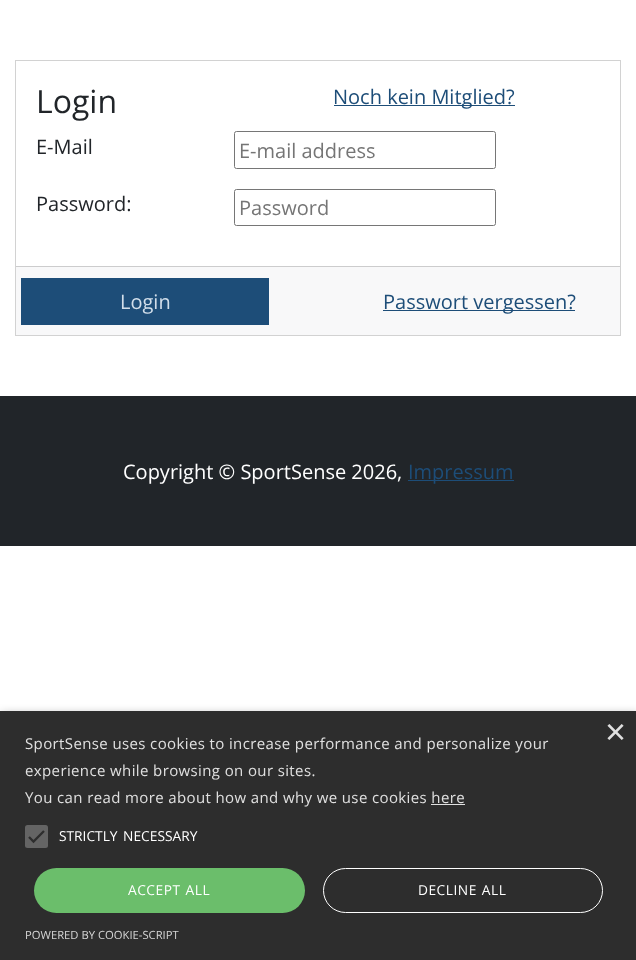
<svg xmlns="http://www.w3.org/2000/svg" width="636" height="960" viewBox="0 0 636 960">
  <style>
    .t1 { font: 32px Open Sans; fill: #212529; }
    .t2 { font: 20px Open Sans; fill: #1d4d78; }
    .t3 { font: 20px Open Sans; fill: #212529; }
    .t4 { font: 20px Open Sans; fill: #757575; }
    .t5 { font: 20px Open Sans; fill: #d1deea; }
    .t6 { font: 20px Open Sans; fill: #fff; }
    .t7 { font: 36px Liberation Sans; fill: #e0e0e0; }
    .t8 { font: 15px Open Sans; letter-spacing: 0.38px; fill: #e0e0e0; }
    .t9 { font: 13.75px Open Sans; fill: #fff; }
    .t10 { font: 13.75px Open Sans; letter-spacing: 0.5px; fill: #fff; }
    .t11 { font: 11.25px Open Sans; fill: #d5d5d5; }
  </style>
  <rect width="100%" height="100%" fill="#fff"/>
  <rect x="15.5" y="60.5" width="605" height="275" fill="none" stroke="#d2d2d2"/>
  <text x="36" y="113" class="t1">Login</text>
  <rect x="334" y="105" width="181" height="1" fill="#1d4d78"/>
  <text x="333" y="104" class="t2">Noch kein Mitglied?</text>
  <text x="36" y="154" class="t3">E-Mail</text>
  <rect x="234.5" y="131.5" width="261" height="37" rx="2" fill="none" stroke="#767676"/>
  <text x="239" y="158" class="t4">E-mail address</text>
  <text x="36" y="211" class="t3">Password:</text>
  <rect x="234.5" y="189.5" width="261" height="36" rx="2" fill="none" stroke="#767676"/>
  <text x="239" y="215" class="t4">Password</text>
  <rect x="16" y="267" width="604" height="68" fill="#f8f8f9"/>
  <rect x="16" y="266" width="604" height="1" fill="#cccccd"/>
  <rect x="21" y="278" width="248" height="47" fill="#1d4d78"/>
  <text x="120" y="309" class="t5">Login</text>
  <rect x="383" y="310" width="192" height="1" fill="#1d4d78"/>
  <text x="383" y="309" class="t2">Passwort vergessen?</text>
  <rect x="0" y="396" width="636" height="150" fill="#212529"/>
  <text x="123" y="479" class="t6">Copyright © SportSense 2026,</text>
  <rect x="408" y="480" width="106" height="1" fill="#1d4d78"/>
  <text x="408" y="479" class="t2">Impressum</text>
  <rect x="1" y="714" width="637" height="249" fill="#00000059" filter="blur(5px)"/>
  <rect x="0" y="711" width="636" height="249" fill="#2d2d2d"/>
  <text x="605" y="744" class="t7">×</text>
  <text x="25" y="749" class="t8">SportSense uses cookies to increase performance and personalize your</text>
  <text x="25" y="776" class="t8">experience while browsing on our sites.</text>
  <text x="25" y="803" class="t8">You can read more about how and why we use cookies here</text>
  <rect x="431" y="804" width="34" height="1" fill="#e0e0e0"/>
  <rect x="25" y="825" width="23" height="23" rx="2.5" fill="#646464"/>
  <path d="M29 837L33.5 841.5L44 831" fill="none" stroke="#2d2d2d" stroke-width="2.3"/>
  <text x="59" y="841" word-spacing="2" class="t9">STRICTLY NECESSARY</text>
  <rect x="34" y="868" width="271" height="45" rx="22.5" fill="#6bbe6b"/>
  <text x="128" y="895" word-spacing="1" class="t10">ACCEPT ALL</text>
  <rect x="323.5" y="868.5" width="279" height="44" rx="22" fill="none" stroke="#fff"/>
  <text x="418" y="895" word-spacing="1" class="t10">DECLINE ALL</text>
  <text x="25" y="939" class="t11">POWERED BY COOKIE-SCRIPT</text>
</svg>
